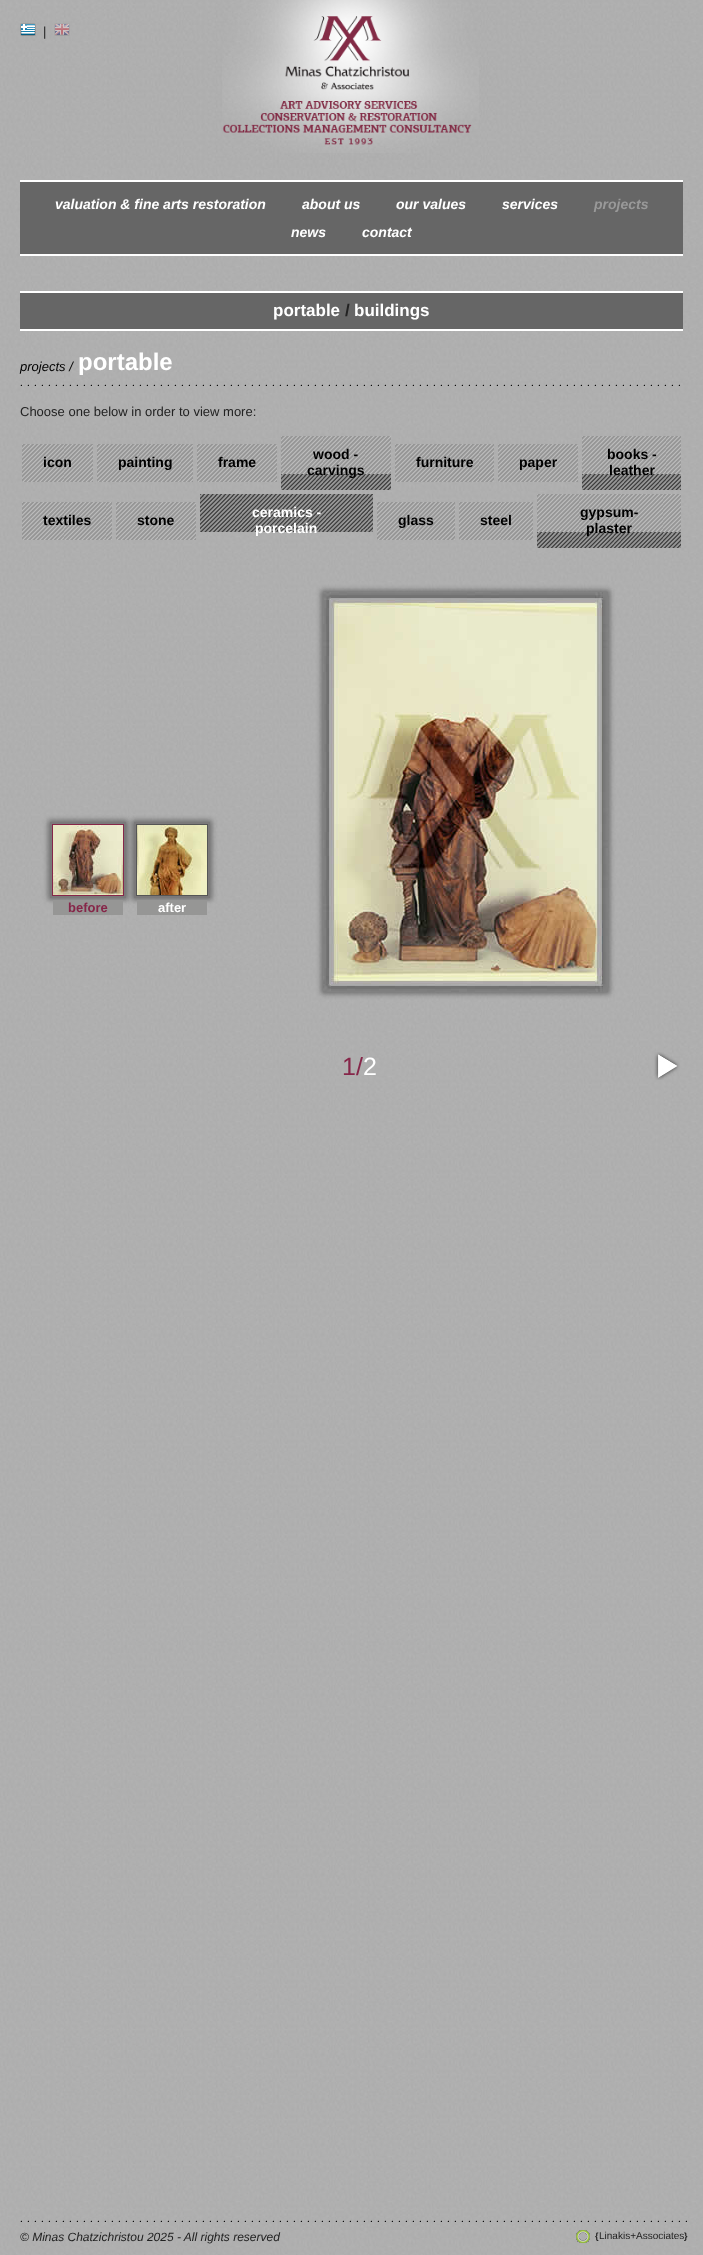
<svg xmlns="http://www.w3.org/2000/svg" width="703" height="2255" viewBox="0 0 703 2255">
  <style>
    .t1 { font: 13px Liberation Sans; fill: #222; }
    .t2 { font: italic bold 14px Liberation Sans; fill: #fff; }
    .t3 { font: italic bold 14px Liberation Sans; fill: #999; }
    .t4 { font: bold 17px Liberation Sans; fill: #fff; }
    .t5 { font: bold 17px Liberation Sans; fill: #222; }
    .t6 { font: italic 13px Liberation Sans; fill: #000; }
    .t7 { font: bold 24px Liberation Sans; fill: #fff; }
    .t8 { font: bold 14px Liberation Sans; fill: #000; }
    .t9 { font: bold 14px Liberation Sans; fill: #fff; }
    .t10 { font: bold 13px Liberation Sans; fill: #862649; }
    .t11 { font: bold 13px Liberation Sans; fill: #fff; }
    .t12 { font: 25px Liberation Sans; fill: #862649; }
    .t13 { font: 25px Liberation Sans; fill: #fff; }
    .t14 { font: italic 12px Liberation Sans; fill: #222; }
    .t15 { font: bold 9px Liberation Sans; fill: #222; }
    .t16 { font: 10px Liberation Sans; fill: #222; }
  </style>
  <rect width="100%" height="100%" fill="#fff"/>
  <image x="0" y="0" width="703" height="2255" href="images/1.png"/>
  <image x="20" y="23" width="16" height="13" href="images/2.png"/>
  <text x="43" y="36" class="t1">|</text>
  <image x="54" y="23" width="16" height="13" href="images/3.png"/>
  <image x="222" y="0" width="257" height="153" href="images/4.png"/>
  <rect x="20" y="182" width="663" height="72" fill="#666"/>
  <rect x="20" y="180" width="663" height="2" fill="#fff"/>
  <rect x="20" y="254" width="663" height="2" fill="#fff"/>
  <text x="55" y="209" class="t2">valuation &amp; fine arts restoration</text>
  <text x="302" y="209" class="t2">about us</text>
  <text x="396" y="209" class="t2">our values</text>
  <text x="502" y="209" class="t2">services</text>
  <text x="594" y="209" class="t3">projects</text>
  <text x="291" y="237" class="t2">news</text>
  <text x="362" y="237" class="t2">contact</text>
  <rect x="20" y="293" width="663" height="36" fill="#666"/>
  <rect x="20" y="291" width="663" height="2" fill="#fff"/>
  <rect x="20" y="329" width="663" height="2" fill="#fff"/>
  <text x="273" y="316" class="t4">portable</text>
  <text x="345" y="316" class="t5">/</text>
  <text x="354" y="316" class="t4">buildings</text>
  <text x="20" y="371" class="t6">projects /</text>
  <image x="20" y="384" width="660" height="2" href="images/5.png"/>
  <text x="78" y="370" class="t7">portable</text>
  <text x="20" y="416" class="t1">Choose one below in order to view more:</text>
  <image x="22" y="444" width="71" height="38" href="images/6.png"/>
  <text x="43" y="467" class="t8">icon</text>
  <image x="97" y="444" width="96" height="38" href="images/7.png"/>
  <text x="118" y="467" class="t8">painting</text>
  <image x="197" y="444" width="80" height="38" href="images/8.png"/>
  <text x="218" y="467" class="t8">frame</text>
  <image x="281" y="436" width="110" height="54" href="images/9.png"/>
  <text x="313" y="459" class="t8">wood -</text>
  <text x="307" y="475" class="t8">carvings</text>
  <image x="395" y="444" width="99" height="38" href="images/10.png"/>
  <text x="416" y="467" class="t8">furniture</text>
  <image x="498" y="444" width="80" height="38" href="images/8.png"/>
  <text x="519" y="467" class="t8">paper</text>
  <image x="582" y="436" width="99" height="54" href="images/11.png"/>
  <text x="607" y="459" class="t8">books -</text>
  <text x="609" y="475" class="t8">leather</text>
  <image x="22" y="502" width="90" height="38" href="images/12.png"/>
  <text x="43" y="525" class="t8">textiles</text>
  <image x="116" y="502" width="80" height="38" href="images/8.png"/>
  <text x="137" y="525" class="t8">stone</text>
  <image x="200" y="494" width="173" height="38" href="images/13.png"/>
  <text x="252" y="517" class="t9">ceramics -</text>
  <text x="255" y="533" class="t9">porcelain</text>
  <image x="377" y="502" width="78" height="38" href="images/14.png"/>
  <text x="398" y="525" class="t8">glass</text>
  <image x="459" y="502" width="74" height="38" href="images/15.png"/>
  <text x="480" y="525" class="t8">steel</text>
  <image x="537" y="494" width="144" height="54" href="images/16.png"/>
  <text x="580" y="517" class="t8">gypsum-</text>
  <text x="586" y="533" class="t8">plaster</text>
  <rect x="48" y="820" width="80" height="80" fill="#44444499" filter="blur(2.5px)"/>
  <rect x="50" y="822" width="76" height="76" fill="#7b797a"/>
  <rect x="52.5" y="824.5" width="71" height="71" fill="none" stroke="#862649"/>
  <image x="53" y="825" width="70" height="70" href="images/17.png"/>
  <rect x="53" y="900" width="70" height="15" fill="#969695"/>
  <text x="68" y="912" class="t10">before</text>
  <rect x="132" y="820" width="80" height="80" fill="#44444499" filter="blur(2.5px)"/>
  <rect x="134" y="822" width="76" height="76" fill="#7b797a"/>
  <rect x="136.5" y="824.5" width="71" height="71" fill="none" stroke="#555"/>
  <image x="137" y="825" width="70" height="70" href="images/18.png"/>
  <rect x="137" y="900" width="70" height="15" fill="#969695"/>
  <text x="158" y="912" class="t11">after</text>
  <rect x="321" y="590" width="289" height="404" fill="#44444499" filter="blur(2.5px)"/>
  <image x="323" y="592" width="285" height="400" href="images/19.png"/>
  <text x="342" y="1075" class="t12">1/</text>
  <text x="363" y="1075" class="t13">2</text>
  <image x="654" y="1052" width="26" height="28" href="images/20.png"/>
  <image x="20" y="2220" width="667" height="2" href="images/21.png"/>
  <text x="20" y="2241" class="t14">© Minas Chatzichristou 2025 - All rights reserved</text>
  <image x="576" y="2230" width="14" height="13" href="images/22.png"/>
  <text x="595" y="2239" class="t15">{</text>
  <text x="599" y="2239" class="t16">Linakis+Associates</text>
  <text x="684" y="2239" class="t15">}</text>
</svg>
